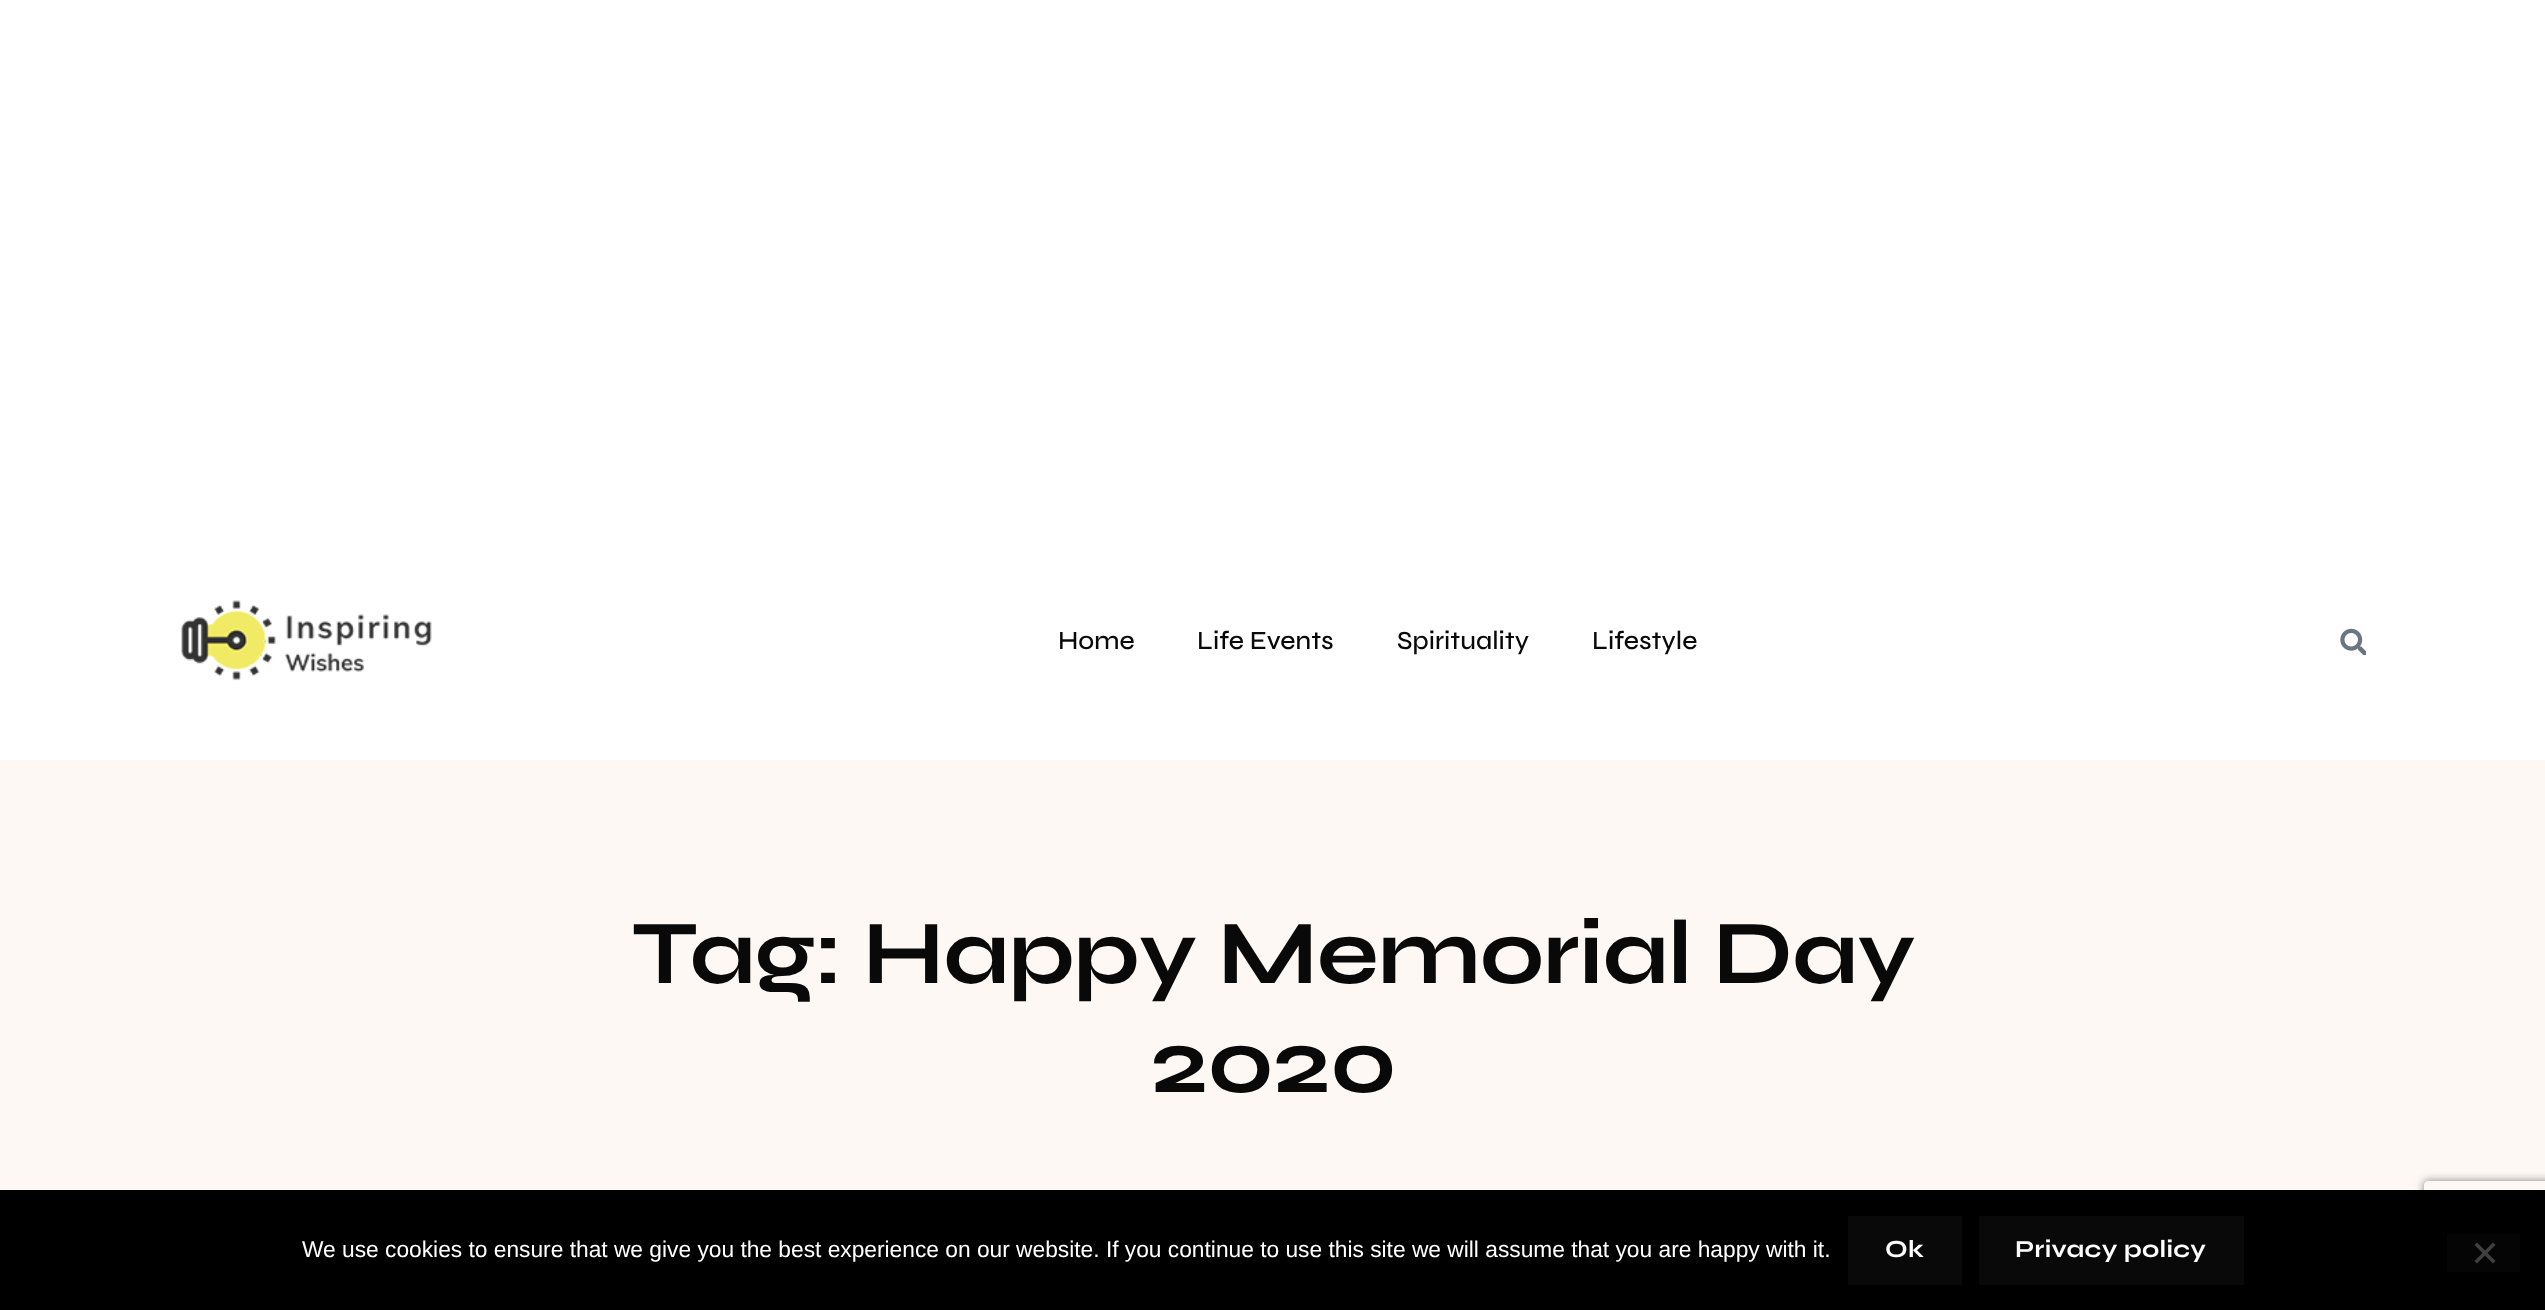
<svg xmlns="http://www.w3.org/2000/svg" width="2545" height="1310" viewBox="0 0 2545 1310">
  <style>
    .t1 { font: 500 26.25px Syne; fill: #090909; }
    .t2 { font: bold 91px Syne; letter-spacing: -0.7px; fill: #090909; }
    .t3 { font: 22.75px Liberation Sans; fill: #fff; }
    .t4 { font: bold 24.5px Syne; letter-spacing: 0.3px; fill: #fff; }
  </style>
  <defs>
    <clipPath id="clip1"><path d="M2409 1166H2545V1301H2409ZM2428 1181H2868C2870 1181 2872 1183 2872 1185V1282C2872 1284 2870 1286 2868 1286H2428C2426 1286 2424 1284 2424 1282V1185C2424 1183 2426 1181 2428 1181Z" clip-rule="evenodd"/></clipPath>
  </defs>
  <rect width="100%" height="100%" fill="#fff"/>
  <image x="181" y="600" width="251" height="81" href="images/1.png"/>
  <text x="1058" y="649" class="t1">Home</text>
  <text x="1197" y="649" class="t1">Life Events</text>
  <text x="1397" y="649" class="t1">Spirituality</text>
  <text x="1592" y="649" class="t1">Lifestyle</text>
  <image x="2340" y="628" width="26" height="27" href="images/2.png"/>
  <rect x="0" y="760" width="2545" height="430" fill="#fdf8f4"/>
  <text x="632" y="983" class="t2">Tag: Happy Memorial Day</text>
  <text x="1151" y="1092" class="t2">2020</text>
  <g clip-path="url(#clip1)">
    <rect x="2424" y="1181" width="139" height="105" rx="4" fill="#808080" filter="blur(4.5px)"/>
  </g>
  <rect x="0" y="1190" width="2545" height="120" fill="#000"/>
  <text x="302" y="1257" class="t3">We use cookies to ensure that we give you the best experience on our website. If you continue to use this site we will assume that you are happy with it.</text>
  <rect x="1848" y="1216" width="114" height="69" fill="#090909"/>
  <text x="1885" y="1257" class="t4">Ok</text>
  <rect x="1979" y="1216" width="265" height="69" fill="#090909"/>
  <text x="2015" y="1257" class="t4">Privacy policy</text>
  <rect x="2447" y="1234" width="73" height="38" fill="#050505"/>
  <path d="M2493 1242.5L2495.5 1245L2477 1263.5L2474.5 1261Z" fill="#404040"/>
  <path d="M2474.5 1245L2477 1242.5L2495.5 1261L2493 1263.5Z" fill="#404040"/>
</svg>
